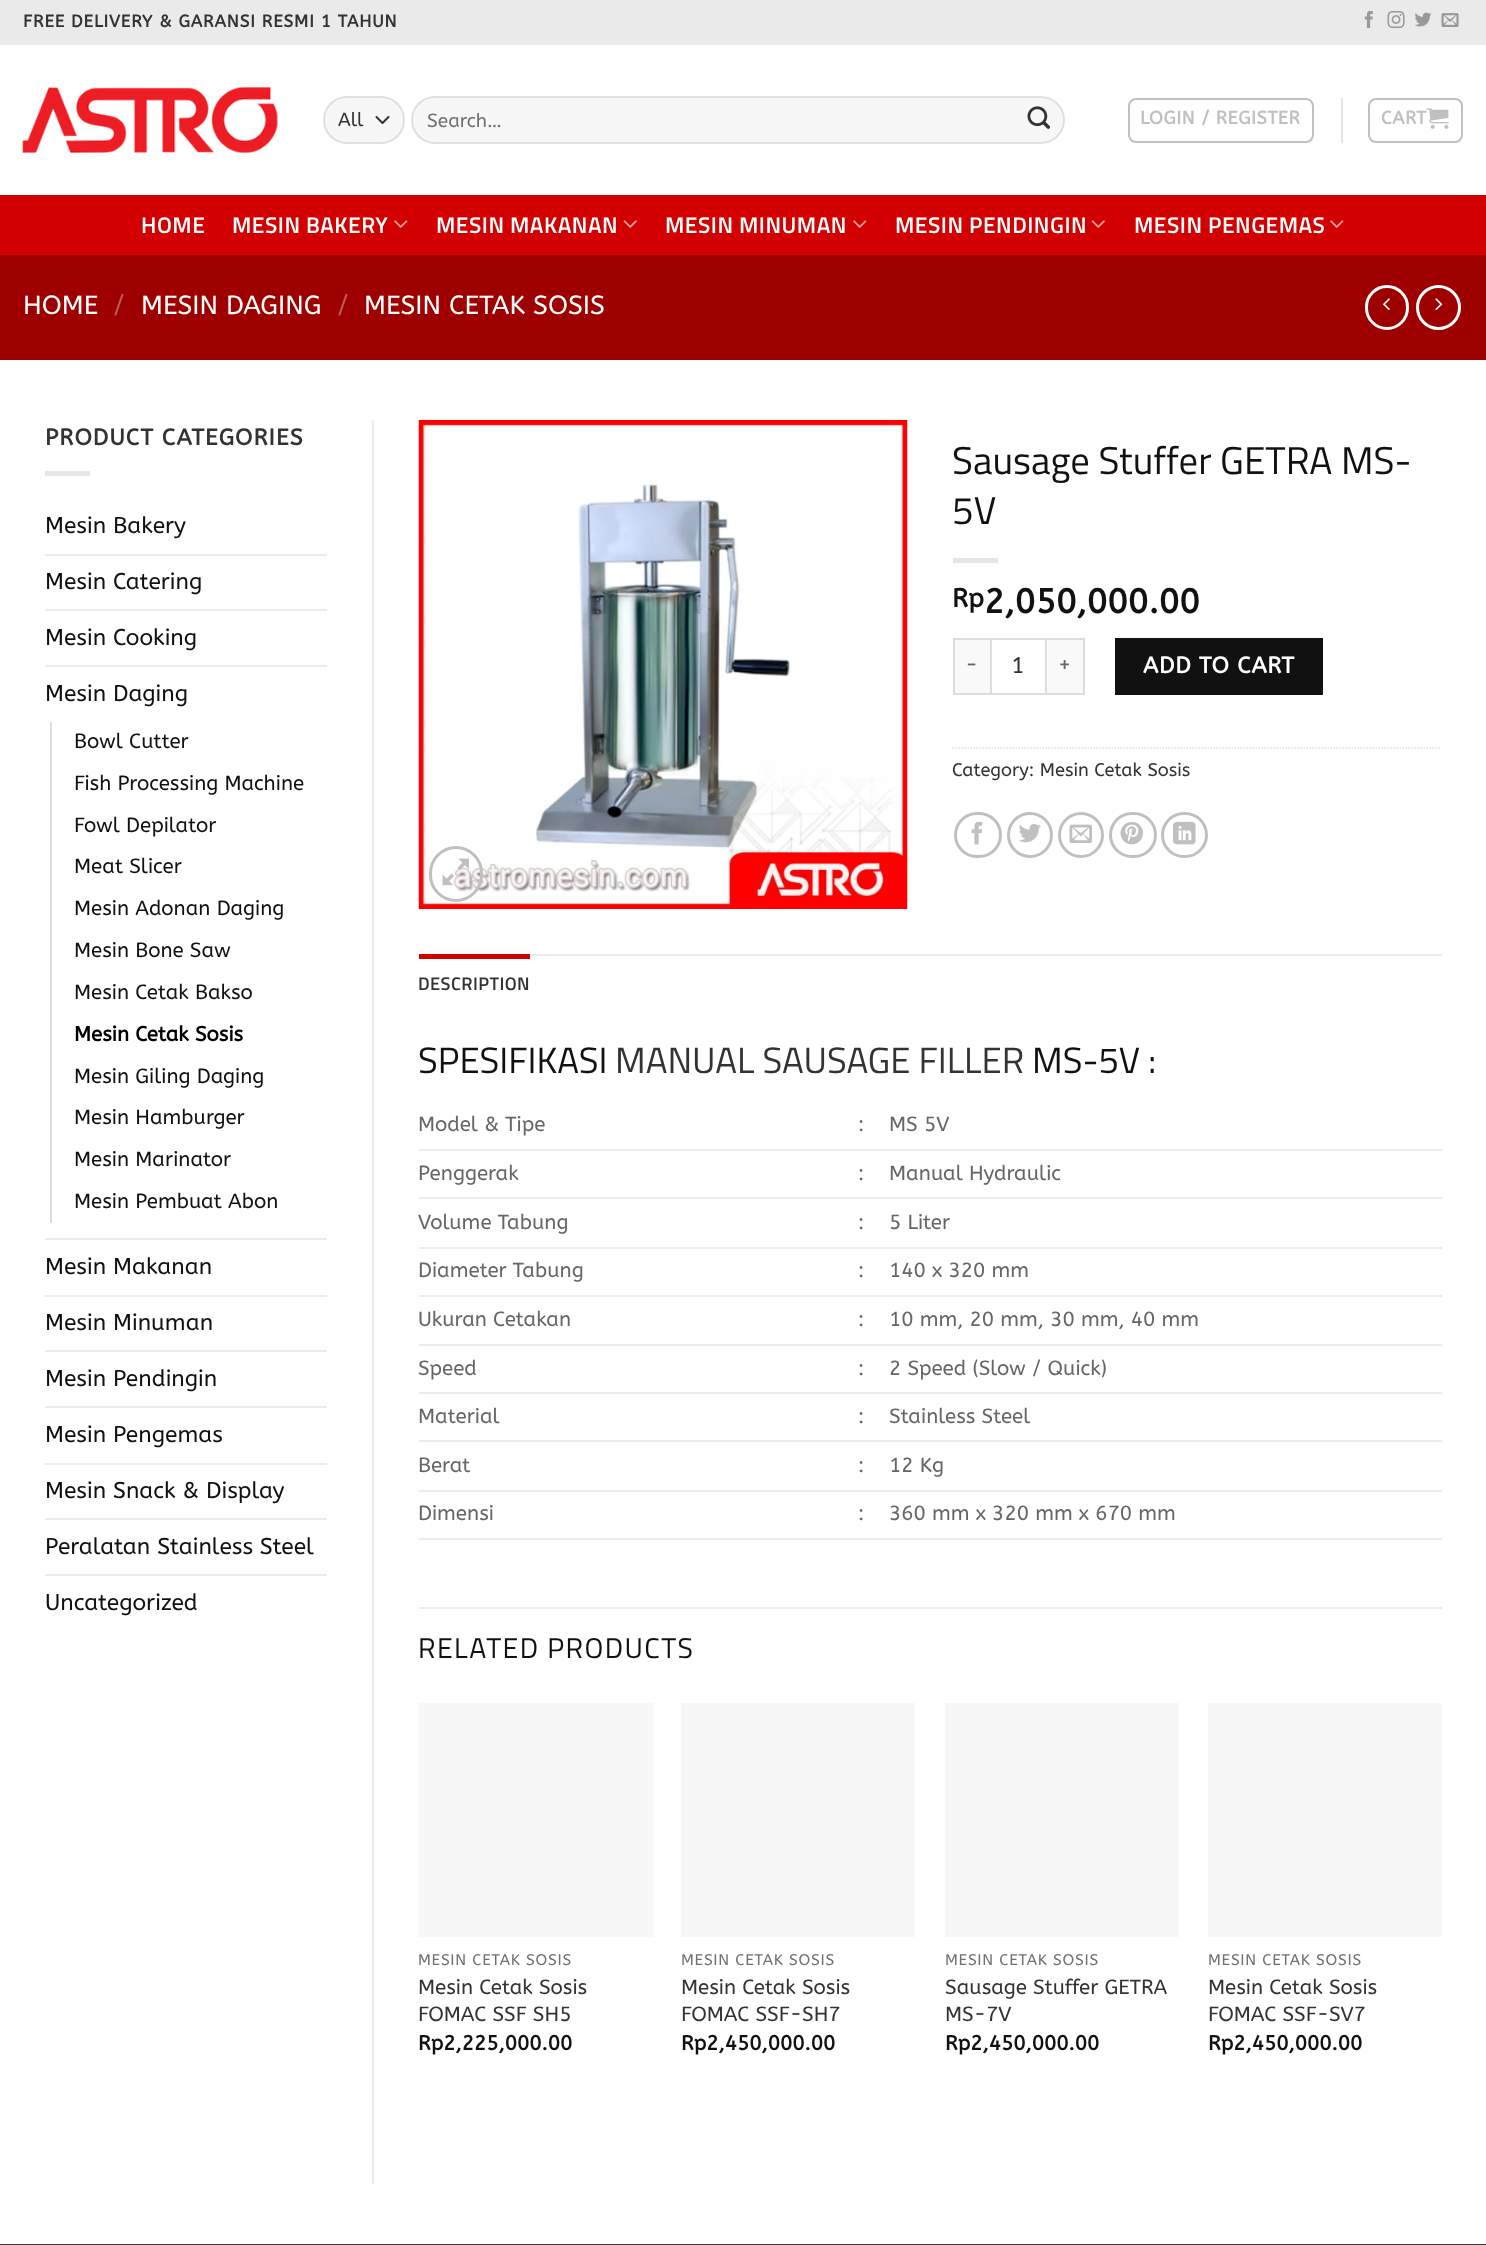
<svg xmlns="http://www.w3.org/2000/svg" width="1486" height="2245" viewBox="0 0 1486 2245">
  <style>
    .t1 { font: bold 17.1px ABeeZee; letter-spacing: 0.85px; fill: #333; }
    .t2 { font: 19px ABeeZee; fill: #333; }
    .t3 { font: 19px ABeeZee; fill: #707070; }
    .t4 { font: bold 18.25px ABeeZee; letter-spacing: 0.5px; fill: #c0c0c0; }
    .t5 { font: 600 22.75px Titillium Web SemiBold; letter-spacing: 0.5px; fill: #fff; }
    .t6 { font: 26.25px ABeeZee; fill: #fff; }
    .t7 { font: 26.25px ABeeZee; fill: #c05959; }
    .t8 { font: bold 22.75px ABeeZee; letter-spacing: 1.1px; fill: #333; }
    .t9 { font: 22.75px ABeeZee; fill: #111; }
    .t10 { font: 20.5px ABeeZee; fill: #111; }
    .t11 { font: bold 20.5px ABeeZee; fill: #000; }
    .t12 { font: 38.75px Titillium Web; fill: #111; }
    .t13 { font: bold 26px ABeeZee; fill: #111; }
    .t14 { font: bold 34.25px ABeeZee; fill: #111; }
    .t15 { font: 22px ABeeZee; letter-spacing: 1px; fill: #666; }
    .t16 { font: 22.75px ABeeZee; fill: #333; }
    .t17 { font: bold 22.75px ABeeZee; letter-spacing: 0.75px; fill: #fff; }
    .t18 { font: 18.25px ABeeZee; fill: #333; }
    .t19 { font: 600 18.25px Titillium Web SemiBold; letter-spacing: 0.4px; fill: #333; }
    .t20 { font: 36.5px Titillium Web; fill: #111; }
    .t21 { font: 36.5px Titillium Web; fill: #333; }
    .t22 { font: 20.5px ABeeZee; fill: #666; }
    .t23 { font: 28.5px Titillium Web; letter-spacing: 1.4px; fill: #111; }
    .t24 { font: 15.4px ABeeZee; letter-spacing: 0.75px; fill: #707070; }
    .t25 { font: 20.5px ABeeZee; fill: #333; }
    .t26 { font: bold 20.5px ABeeZee; fill: #111; }
  </style>
  <rect width="100%" height="100%" fill="#fff"/>
  <rect x="0" y="0" width="1486" height="45" fill="#eaeaea"/>
  <text x="23" y="27" class="t1">FREE DELIVERY &amp; GARANSI RESMI 1 TAHUN</text>
  <image x="1364" y="11" width="9" height="18" href="images/1.png"/>
  <image x="1387" y="11" width="18" height="18" href="images/2.png"/>
  <image x="1415" y="12" width="17" height="15" href="images/3.png"/>
  <image x="1441" y="13" width="18" height="14" href="images/4.png"/>
  <image x="22" y="87" width="256" height="66" href="images/5.png"/>
  <rect x="323" y="96" width="82" height="48" rx="24" fill="#f7f7f7"/>
  <path d="M376.5 117L382.5 123L388.5 117" fill="none" stroke="#333" stroke-width="2" stroke-linecap="round" stroke-linejoin="round"/>
  <rect x="324" y="97" width="80" height="46" rx="23" fill="none" stroke="#00000017" stroke-width="2"/>
  <text x="338" y="126" class="t2">All</text>
  <rect x="411" y="96" width="654" height="48" rx="24" fill="#f7f7f7"/>
  <rect x="412" y="97" width="652" height="46" rx="23" fill="none" stroke="#00000017" stroke-width="2"/>
  <text x="427" y="127" class="t3">Search…</text>
  <image x="1027" y="106" width="23" height="23" href="images/6.png"/>
  <rect x="1129" y="99" width="184" height="43" rx="7" fill="none" stroke="#c0c0c0" stroke-width="2"/>
  <text x="1140" y="124" class="t4">LOGIN / REGISTER</text>
  <rect x="1341" y="98" width="2" height="45" fill="#e6e6e6"/>
  <rect x="1369" y="99" width="93" height="43" rx="7" fill="none" stroke="#c0c0c0" stroke-width="2"/>
  <text x="1381" y="124" class="t4">CART</text>
  <image x="1426" y="108" width="23" height="21" href="images/7.png"/>
  <rect x="0" y="195" width="1486" height="60" fill="#d20000"/>
  <rect x="23" y="195" width="1441" height="2" fill="#c20505"/>
  <text x="141" y="233" class="t5">HOME</text>
  <text x="232" y="233" class="t5">MESIN BAKERY</text>
  <image x="394" y="220" width="14" height="8" href="images/8.png"/>
  <text x="436" y="233" class="t5">MESIN MAKANAN</text>
  <image x="623" y="220" width="14" height="8" href="images/9.png"/>
  <text x="665" y="233" class="t5">MESIN MINUMAN</text>
  <image x="853" y="220" width="14" height="8" href="images/8.png"/>
  <text x="895" y="233" class="t5">MESIN PENDINGIN</text>
  <image x="1091" y="220" width="14" height="8" href="images/9.png"/>
  <text x="1134" y="233" class="t5">MESIN PENGEMAS</text>
  <image x="1330" y="220" width="14" height="8" href="images/8.png"/>
  <rect x="0" y="255" width="1486" height="105" fill="#9e0000"/>
  <text x="23" y="314" class="t6">HOME</text>
  <text x="113" y="314" class="t7">/</text>
  <text x="141" y="314" class="t6">MESIN DAGING</text>
  <text x="337" y="314" class="t7">/</text>
  <text x="364" y="314" class="t6">MESIN CETAK SOSIS</text>
  <rect x="1366.5" y="286.5" width="41" height="42" rx="20.5" fill="none" stroke="#fff" stroke-width="3"/>
  <image x="1383" y="298" width="7" height="13" href="images/10.png"/>
  <circle cx="1438.5" cy="307.5" r="21" fill="none" stroke="#fff" stroke-width="3"/>
  <image x="1435" y="298" width="8" height="13" href="images/11.png"/>
  <text x="45" y="445" class="t8">PRODUCT CATEGORIES</text>
  <rect x="45" y="471" width="45" height="5" fill="#e6e6e6"/>
  <text x="45" y="533" class="t9">Mesin Bakery</text>
  <rect x="45" y="554" width="282" height="2" fill="#ececec"/>
  <text x="45" y="589" class="t9">Mesin Catering</text>
  <rect x="45" y="609" width="282" height="2" fill="#ececec"/>
  <text x="45" y="645" class="t9">Mesin Cooking</text>
  <rect x="45" y="665" width="282" height="2" fill="#ececec"/>
  <text x="45" y="701" class="t9">Mesin Daging</text>
  <rect x="50" y="722" width="2" height="501" fill="#ddd"/>
  <text x="74" y="748" class="t10">Bowl Cutter</text>
  <text x="74" y="790" class="t10">Fish Processing Machine</text>
  <text x="74" y="832" class="t10">Fowl Depilator</text>
  <text x="74" y="873" class="t10">Meat Slicer</text>
  <text x="74" y="915" class="t10">Mesin Adonan Daging</text>
  <text x="74" y="957" class="t10">Mesin Bone Saw</text>
  <text x="74" y="999" class="t10">Mesin Cetak Bakso</text>
  <text x="74" y="1041" class="t11">Mesin Cetak Sosis</text>
  <text x="74" y="1083" class="t10">Mesin Giling Daging</text>
  <text x="74" y="1124" class="t10">Mesin Hamburger</text>
  <text x="74" y="1166" class="t10">Mesin Marinator</text>
  <text x="74" y="1208" class="t10">Mesin Pembuat Abon</text>
  <rect x="45" y="1238" width="282" height="2" fill="#ececec"/>
  <text x="45" y="1274" class="t9">Mesin Makanan</text>
  <rect x="45" y="1295" width="282" height="2" fill="#ececec"/>
  <text x="45" y="1330" class="t9">Mesin Minuman</text>
  <rect x="45" y="1350" width="282" height="2" fill="#ececec"/>
  <text x="45" y="1386" class="t9">Mesin Pendingin</text>
  <rect x="45" y="1406" width="282" height="2" fill="#ececec"/>
  <text x="45" y="1442" class="t9">Mesin Pengemas</text>
  <rect x="45" y="1463" width="282" height="2" fill="#ececec"/>
  <text x="45" y="1498" class="t9">Mesin Snack &amp; Display</text>
  <rect x="45" y="1518" width="282" height="2" fill="#ececec"/>
  <text x="45" y="1554" class="t9">Peralatan Stainless Steel</text>
  <rect x="45" y="1574" width="282" height="2" fill="#ececec"/>
  <text x="45" y="1610" class="t9">Uncategorized</text>
  <rect x="372" y="420" width="2" height="1764" fill="#ececec"/>
  <image x="418" y="420" width="490" height="489" href="images/12.png"/>
  <rect x="430.5" y="847.5" width="51" height="53" rx="25.5" fill="none" stroke="#c0c0c0" stroke-width="3"/>
  <image x="442" y="858" width="27" height="28" href="images/13.png"/>
  <text x="952" y="474" class="t12">Sausage Stuffer GETRA MS-</text>
  <text x="952" y="524" class="t12">5V</text>
  <rect x="953" y="558" width="45" height="5" fill="#e6e6e6"/>
  <text x="952" y="607" class="t13">Rp</text>
  <text x="984" y="613" class="t14">2,050,000.00</text>
  <rect x="955" y="640" width="35" height="53" fill="#f9f9f9"/>
  <rect x="953" y="638" width="37" height="2" fill="#ddd"/>
  <rect x="953" y="693" width="37" height="2" fill="#ddd"/>
  <rect x="953" y="638" width="2" height="57" fill="#ddd"/>
  <text x="965" y="672" class="t15">-</text>
  <rect x="991" y="639" width="55" height="55" fill="none" stroke="#ddd" stroke-width="2"/>
  <text x="1011" y="673" class="t16">1</text>
  <rect x="1047" y="640" width="36" height="53" fill="#f9f9f9"/>
  <rect x="1047" y="638" width="38" height="2" fill="#ddd"/>
  <rect x="1083" y="638" width="2" height="57" fill="#ddd"/>
  <rect x="1047" y="693" width="38" height="2" fill="#ddd"/>
  <text x="1058" y="672" class="t15">+</text>
  <rect x="1115" y="638" width="208" height="57" fill="#111"/>
  <text x="1143" y="673" class="t17">ADD TO CART</text>
  <path d="M952.5 748H1441.5" fill="none" stroke="#ddd" stroke-width="1.5" stroke-dasharray="1.5 1.5"/>
  <text x="952" y="776" class="t18">Category: Mesin Cetak Sosis</text>
  <rect x="955.5" y="813.5" width="45" height="43" rx="21.5" fill="none" stroke="#c0c0c0" stroke-width="3"/>
  <image x="971" y="821" width="12" height="24" href="images/14.png"/>
  <circle cx="1030" cy="835" r="21.5" fill="none" stroke="#c0c0c0" stroke-width="3"/>
  <image x="1019" y="824" width="22" height="19" href="images/15.png"/>
  <circle cx="1081" cy="835" r="21.5" fill="none" stroke="#c0c0c0" stroke-width="3"/>
  <image x="1069" y="824" width="23" height="19" href="images/16.png"/>
  <rect x="1110.5" y="813.5" width="45" height="43" rx="21.5" fill="none" stroke="#c0c0c0" stroke-width="3"/>
  <image x="1120" y="821" width="23" height="24" href="images/17.png"/>
  <rect x="1162.5" y="813.5" width="44" height="43" rx="21.5" fill="none" stroke="#c0c0c0" stroke-width="3"/>
  <image x="1173" y="821" width="23" height="24" href="images/18.png"/>
  <rect x="530" y="954" width="912" height="2" fill="#ececec"/>
  <rect x="419" y="954" width="111" height="5" fill="#d20000"/>
  <text x="418" y="990" class="t19">DESCRIPTION</text>
  <text x="418" y="1073" class="t20">SPESIFIKASI</text>
  <text x="615" y="1073" class="t21">MANUAL SAUSAGE FILLER</text>
  <text x="1032" y="1073" class="t20">MS-5V :</text>
  <rect x="419" y="1149" width="1023" height="2" fill="#ececec"/>
  <text x="418" y="1131" class="t22">Model &amp; Tipe</text>
  <text x="858" y="1131" class="t22">:</text>
  <text x="889" y="1131" class="t22">MS 5V</text>
  <rect x="419" y="1197" width="1023" height="2" fill="#ececec"/>
  <text x="418" y="1180" class="t22">Penggerak</text>
  <text x="858" y="1180" class="t22">:</text>
  <text x="889" y="1180" class="t22">Manual Hydraulic</text>
  <rect x="419" y="1247" width="1023" height="2" fill="#ececec"/>
  <text x="418" y="1229" class="t22">Volume Tabung</text>
  <text x="858" y="1229" class="t22">:</text>
  <text x="889" y="1229" class="t22">5 Liter</text>
  <rect x="419" y="1295" width="1023" height="2" fill="#ececec"/>
  <text x="418" y="1277" class="t22">Diameter Tabung</text>
  <text x="858" y="1277" class="t22">:</text>
  <text x="889" y="1277" class="t22">140 x 320 mm</text>
  <rect x="419" y="1344" width="1023" height="2" fill="#ececec"/>
  <text x="418" y="1326" class="t22">Ukuran Cetakan</text>
  <text x="858" y="1326" class="t22">:</text>
  <text x="889" y="1326" class="t22">10 mm, 20 mm, 30 mm, 40 mm</text>
  <rect x="419" y="1392" width="1023" height="2" fill="#ececec"/>
  <text x="418" y="1375" class="t22">Speed</text>
  <text x="858" y="1375" class="t22">:</text>
  <text x="889" y="1375" class="t22">2 Speed (Slow / Quick)</text>
  <rect x="419" y="1440" width="1023" height="2" fill="#ececec"/>
  <text x="418" y="1423" class="t22">Material</text>
  <text x="858" y="1423" class="t22">:</text>
  <text x="889" y="1423" class="t22">Stainless Steel</text>
  <rect x="419" y="1490" width="1023" height="2" fill="#ececec"/>
  <text x="418" y="1472" class="t22">Berat</text>
  <text x="858" y="1472" class="t22">:</text>
  <text x="889" y="1472" class="t22">12 Kg</text>
  <rect x="419" y="1538" width="1023" height="2" fill="#ececec"/>
  <text x="418" y="1520" class="t22">Dimensi</text>
  <text x="858" y="1520" class="t22">:</text>
  <text x="889" y="1520" class="t22">360 mm x 320 mm x 670 mm</text>
  <rect x="419" y="1607" width="1023" height="2" fill="#ececec"/>
  <text x="418" y="1658" class="t23">RELATED PRODUCTS</text>
  <rect x="419" y="1703" width="234" height="234" fill="#f7f7f7"/>
  <text x="418" y="1965" class="t24">MESIN CETAK SOSIS</text>
  <text x="418" y="1994" class="t25">Mesin Cetak Sosis</text>
  <text x="418" y="2021" class="t25">FOMAC SSF SH5</text>
  <text x="418" y="2050" class="t26">Rp2,225,000.00</text>
  <rect x="681" y="1703" width="234" height="234" fill="#f7f7f7"/>
  <text x="681" y="1965" class="t24">MESIN CETAK SOSIS</text>
  <text x="681" y="1994" class="t25">Mesin Cetak Sosis</text>
  <text x="681" y="2021" class="t25">FOMAC SSF-SH7</text>
  <text x="681" y="2050" class="t26">Rp2,450,000.00</text>
  <rect x="945" y="1703" width="234" height="234" fill="#f7f7f7"/>
  <text x="945" y="1965" class="t24">MESIN CETAK SOSIS</text>
  <text x="945" y="1994" class="t25">Sausage Stuffer GETRA</text>
  <text x="945" y="2021" class="t25">MS-7V</text>
  <text x="945" y="2050" class="t26">Rp2,450,000.00</text>
  <rect x="1208" y="1703" width="234" height="234" fill="#f7f7f7"/>
  <text x="1208" y="1965" class="t24">MESIN CETAK SOSIS</text>
  <text x="1208" y="1994" class="t25">Mesin Cetak Sosis</text>
  <text x="1208" y="2021" class="t25">FOMAC SSF-SV7</text>
  <text x="1208" y="2050" class="t26">Rp2,450,000.00</text>
  <rect x="0" y="2244" width="1486" height="1" fill="#3d3c3f"/>
</svg>
